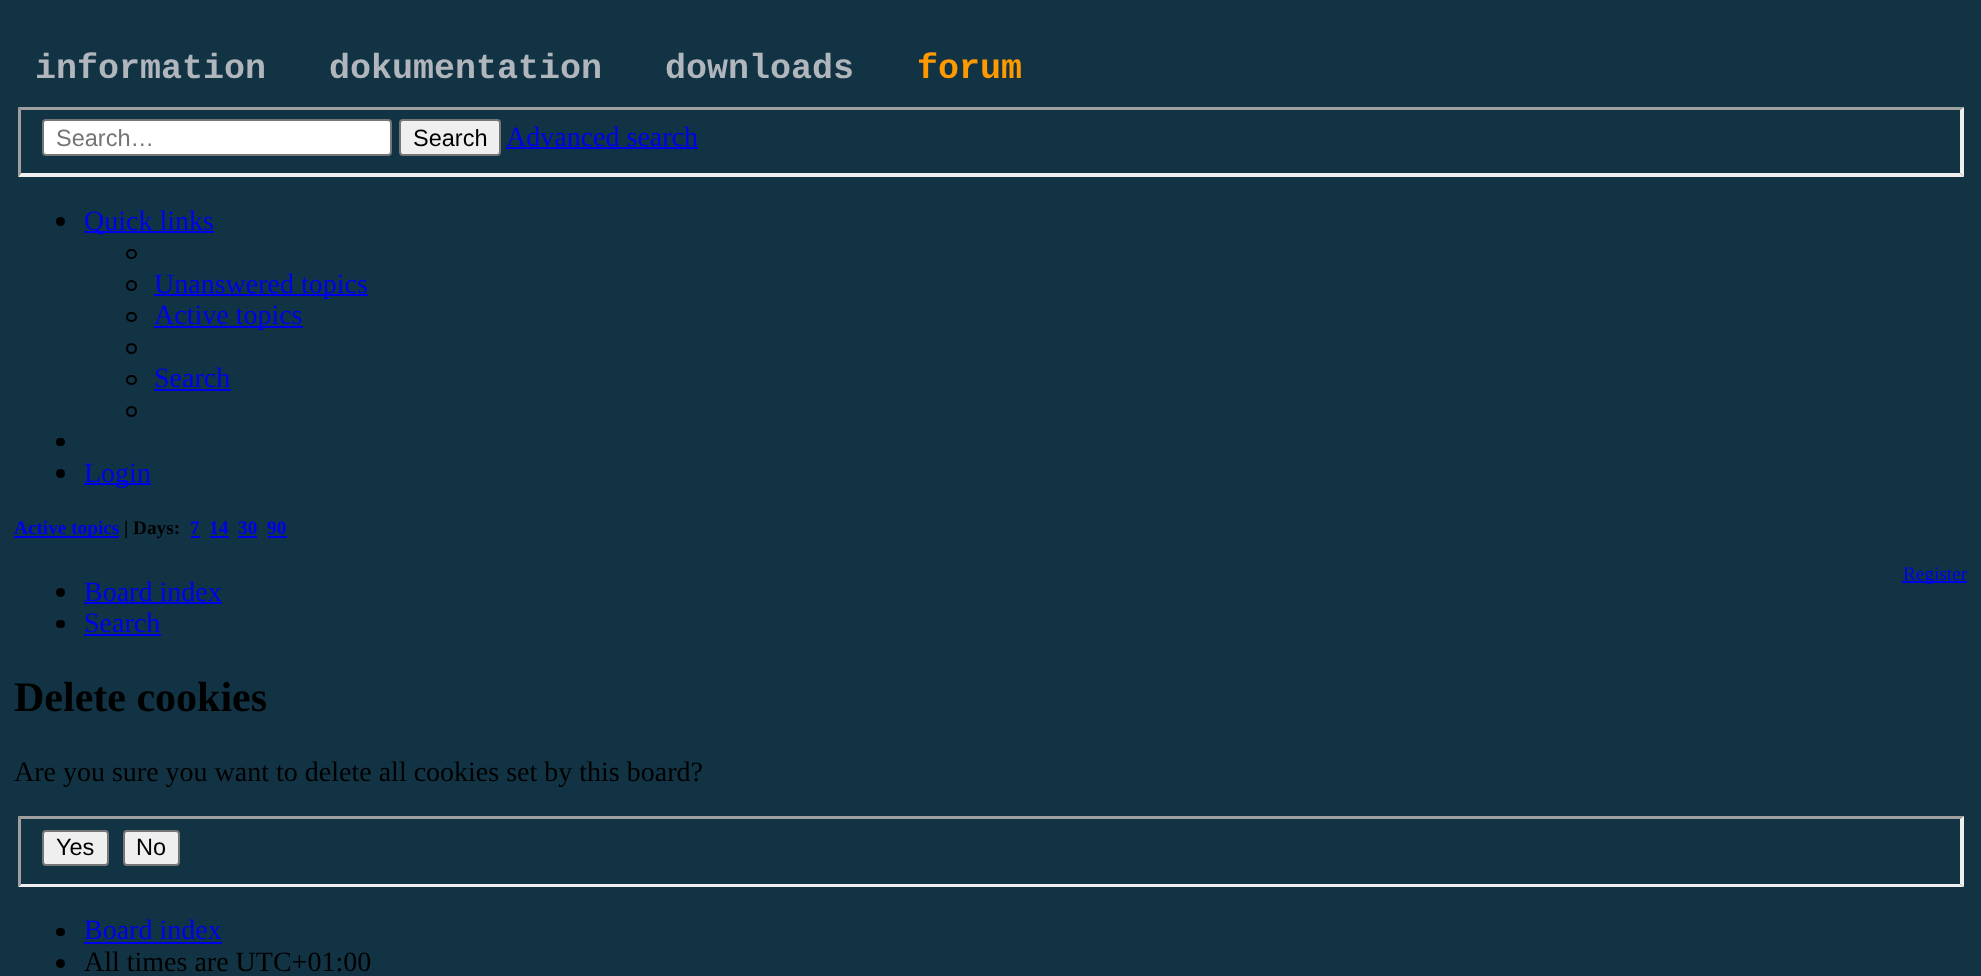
<svg xmlns="http://www.w3.org/2000/svg" width="1981" height="976" viewBox="0 0 1981 976">
  <style>
    .t1 { font: bold 35px Liberation Mono; fill: #b0b6bc; }
    .t2 { font: bold 35px Liberation Mono; fill: #f90; }
    .t3 { font: 23.5px Liberation Sans; fill: #757575; }
    .t4 { font: 23.5px Liberation Sans; fill: #000; }
    .t5 { font: 28px Liberation Serif; fill: #00e; }
    .t6 { font: bold 19.25px Liberation Serif; fill: #00e; }
    .t7 { font: bold 19.25px Liberation Serif; fill: #000; }
    .t8 { font: 19.25px Liberation Serif; fill: #00e; }
    .t9 { font: bold 42px Liberation Serif; fill: #000; }
    .t10 { font: 28px Liberation Serif; fill: #000; }
  </style>
  <rect width="100%" height="100%" fill="#134"/>
  <text x="35" y="78" class="t1">information</text>
  <text x="329" y="78" class="t1">dokumentation</text>
  <text x="665" y="78" class="t1">downloads</text>
  <text x="917" y="78" class="t2">forum</text>
  <path d="M18 107H1964L1960 110H21Z" fill="#9f9f9f"/>
  <path d="M1964 107V177L1960 173V110Z" fill="#efefef"/>
  <path d="M1964 177H18L21 173H1960Z" fill="#efefef"/>
  <path d="M18 177V107L21 110V173Z" fill="#9f9f9f"/>
  <rect x="43" y="120" width="348" height="35" rx="3" fill="#fff" stroke="#767676" stroke-width="2"/>
  <text x="56" y="146" class="t3">Search…</text>
  <rect x="400" y="120" width="100" height="35" rx="3" fill="#efefef" stroke="#767676" stroke-width="2"/>
  <text x="413" y="146" class="t4">Search</text>
  <text x="506" y="146" class="t5">Advanced search</text>
  <rect x="506" y="147" width="192" height="2" fill="#00e"/>
  <circle cx="60.5" cy="221.5" r="4.5" fill="#000"/>
  <rect x="84" y="231" width="130" height="2" fill="#00e"/>
  <text x="84" y="230" class="t5">Quick links</text>
  <rect x="127" y="250" width="9" height="8" rx="4" fill="none" stroke="#000" stroke-width="2"/>
  <circle cx="131.5" cy="285.5" r="4.5" fill="none" stroke="#000" stroke-width="2"/>
  <rect x="154" y="294" width="214" height="2" fill="#00e"/>
  <text x="154" y="293" class="t5">Unanswered topics</text>
  <rect x="127" y="313" width="9" height="8" rx="4" fill="none" stroke="#000" stroke-width="2"/>
  <rect x="154" y="326" width="149" height="2" fill="#00e"/>
  <text x="154" y="324" class="t5">Active topics</text>
  <circle cx="131.5" cy="348.5" r="4.5" fill="none" stroke="#000" stroke-width="2"/>
  <rect x="127" y="376" width="9" height="8" rx="4" fill="none" stroke="#000" stroke-width="2"/>
  <text x="154" y="387" class="t5">Search</text>
  <rect x="154" y="389" width="77" height="2" fill="#00e"/>
  <circle cx="131.5" cy="411.5" r="4.5" fill="none" stroke="#000" stroke-width="2"/>
  <rect x="56" y="438" width="9" height="8" rx="4" fill="#000"/>
  <circle cx="60.5" cy="473.5" r="4.5" fill="#000"/>
  <rect x="84" y="483" width="67" height="2" fill="#00e"/>
  <text x="84" y="482" class="t5">Login</text>
  <rect x="14" y="536" width="105" height="2" fill="#00e"/>
  <text x="14" y="534" class="t6">Active topics</text>
  <text x="124" y="534" class="t7">| Days:</text>
  <text x="190" y="534" class="t6">7</text>
  <rect x="191" y="536" width="9" height="2" fill="#00e"/>
  <text x="209" y="534" class="t6">14</text>
  <rect x="210" y="536" width="19" height="2" fill="#00e"/>
  <text x="238" y="534" class="t6">30</text>
  <rect x="238" y="536" width="19" height="2" fill="#00e"/>
  <text x="267" y="534" class="t6">90</text>
  <rect x="268" y="536" width="19" height="2" fill="#00e"/>
  <rect x="1902" y="581" width="65" height="2" fill="#00e"/>
  <text x="1903" y="580" class="t8">Register</text>
  <circle cx="60.5" cy="592.5" r="4.5" fill="#000"/>
  <text x="84" y="601" class="t5">Board index</text>
  <rect x="84" y="602" width="138" height="2" fill="#00e"/>
  <rect x="56" y="620" width="9" height="8" rx="4" fill="#000"/>
  <text x="84" y="632" class="t5">Search</text>
  <rect x="84" y="634" width="77" height="2" fill="#00e"/>
  <text x="14" y="711" class="t9">Delete cookies</text>
  <text x="14" y="781" class="t10">Are you sure you want to delete all cookies set by this board?</text>
  <path d="M18 816H1964L1960 819H21Z" fill="#9f9f9f"/>
  <path d="M1964 816V887L1960 884V819Z" fill="#efefef"/>
  <path d="M1964 887H18L21 884H1960Z" fill="#efefef"/>
  <path d="M18 887V816L21 819V884Z" fill="#9f9f9f"/>
  <rect x="43" y="831" width="65" height="34" rx="3" fill="#efefef" stroke="#767676" stroke-width="2"/>
  <text x="56" y="855" class="t4">Yes</text>
  <rect x="124" y="831" width="55" height="34" rx="3" fill="#efefef" stroke="#767676" stroke-width="2"/>
  <text x="136" y="855" class="t4">No</text>
  <rect x="56" y="928" width="9" height="8" rx="4" fill="#000"/>
  <text x="84" y="939" class="t5">Board index</text>
  <rect x="84" y="942" width="138" height="2" fill="#00e"/>
  <circle cx="60.5" cy="963.5" r="4.5" fill="#000"/>
  <text x="84" y="971" class="t10">All times are UTC+01:00</text>
</svg>
